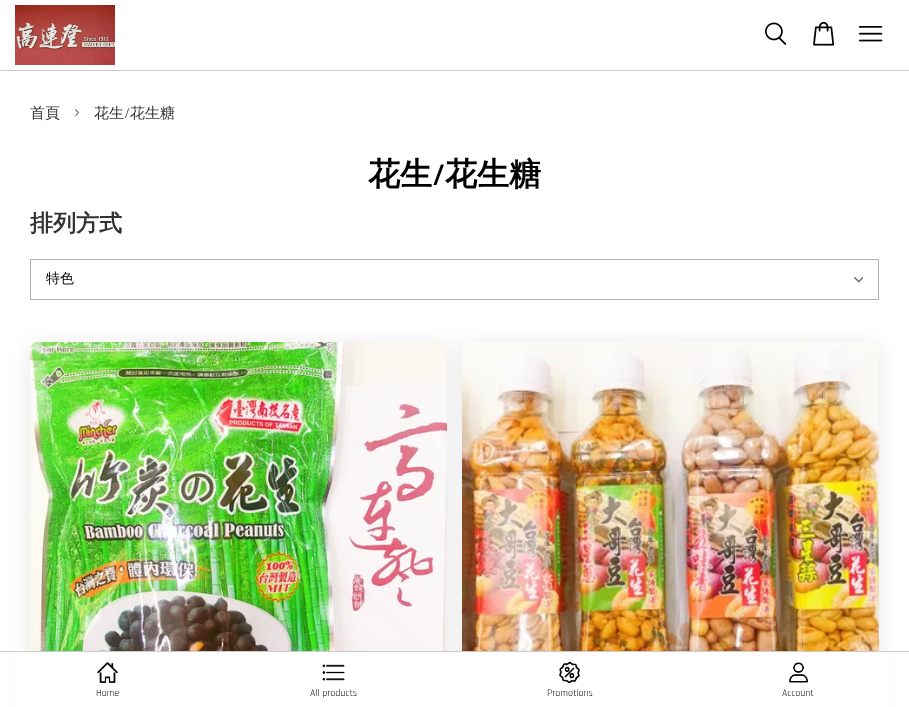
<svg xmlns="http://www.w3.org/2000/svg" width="909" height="707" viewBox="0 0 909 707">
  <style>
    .t1 { font: 500 15px WenQuanYi Zen Hei; fill: #333; }
    .t2 { font: 21px Rajdhani; fill: #333; }
    .t3 { font: 15px Rajdhani; fill: #333; }
    .t4 { font: bold 32px WenQuanYi Zen Hei; fill: #000; }
    .t5 { font: 600 32px Rajdhani; fill: #000; }
    .t6 { font: bold 23px WenQuanYi Zen Hei; fill: #333; }
    .t7 { font: 500 14px WenQuanYi Zen Hei; fill: #000; }
    .t8 { font: 10px Rajdhani; fill: #000; }
  </style>
  <rect width="100%" height="100%" fill="#fff"/>
  <rect x="0" y="70" width="909" height="1" fill="#ccc"/>
  <image x="15" y="5" width="100" height="60" href="images/1.png"/>
  <image x="765" y="22" width="22" height="23" href="images/2.png"/>
  <image x="813" y="21" width="22" height="25" href="images/3.png"/>
  <image x="858" y="26" width="25" height="16" href="images/4.png"/>
  <text x="30" y="118" class="t1">首頁</text>
  <text x="74" y="118" class="t2">›</text>
  <text x="94" y="118" class="t1">花生</text>
  <text x="124" y="118" class="t3">/</text>
  <text x="130" y="118" class="t1">花生糖</text>
  <text x="368" y="185" class="t4">花生</text>
  <text x="432" y="185" class="t5">/</text>
  <text x="445" y="185" class="t4">花生糖</text>
  <text x="30" y="231" class="t6">排列方式</text>
  <image x="854" y="277" width="9" height="6" href="images/5.png"/>
  <rect x="30.5" y="259.5" width="848" height="40" fill="none" stroke="#b1b1b1"/>
  <text x="46" y="283" class="t7">特色</text>
  <rect x="30" y="345" width="417" height="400" rx="8" fill="#0000001a" filter="blur(10px)"/>
  <image x="30" y="342" width="417" height="309" href="images/6.png"/>
  <rect x="462" y="345" width="417" height="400" rx="8" fill="#0000001a" filter="blur(10px)"/>
  <image x="462" y="342" width="417" height="309" href="images/7.png"/>
  <rect x="17" y="652" width="875" height="55" fill="#fff"/>
  <rect x="0" y="651" width="909" height="1" fill="#ccc"/>
  <image x="97" y="662" width="21" height="21" href="images/8.png"/>
  <text x="96" y="696" class="t8">Home</text>
  <image x="322" y="664" width="23" height="17" href="images/9.png"/>
  <text x="310" y="696" class="t8">All products</text>
  <image x="559" y="661" width="21" height="23" href="images/10.png"/>
  <text x="547" y="696" class="t8">Promotions</text>
  <image x="789" y="662" width="19" height="21" href="images/11.png"/>
  <text x="782" y="696" class="t8">Account</text>
</svg>
